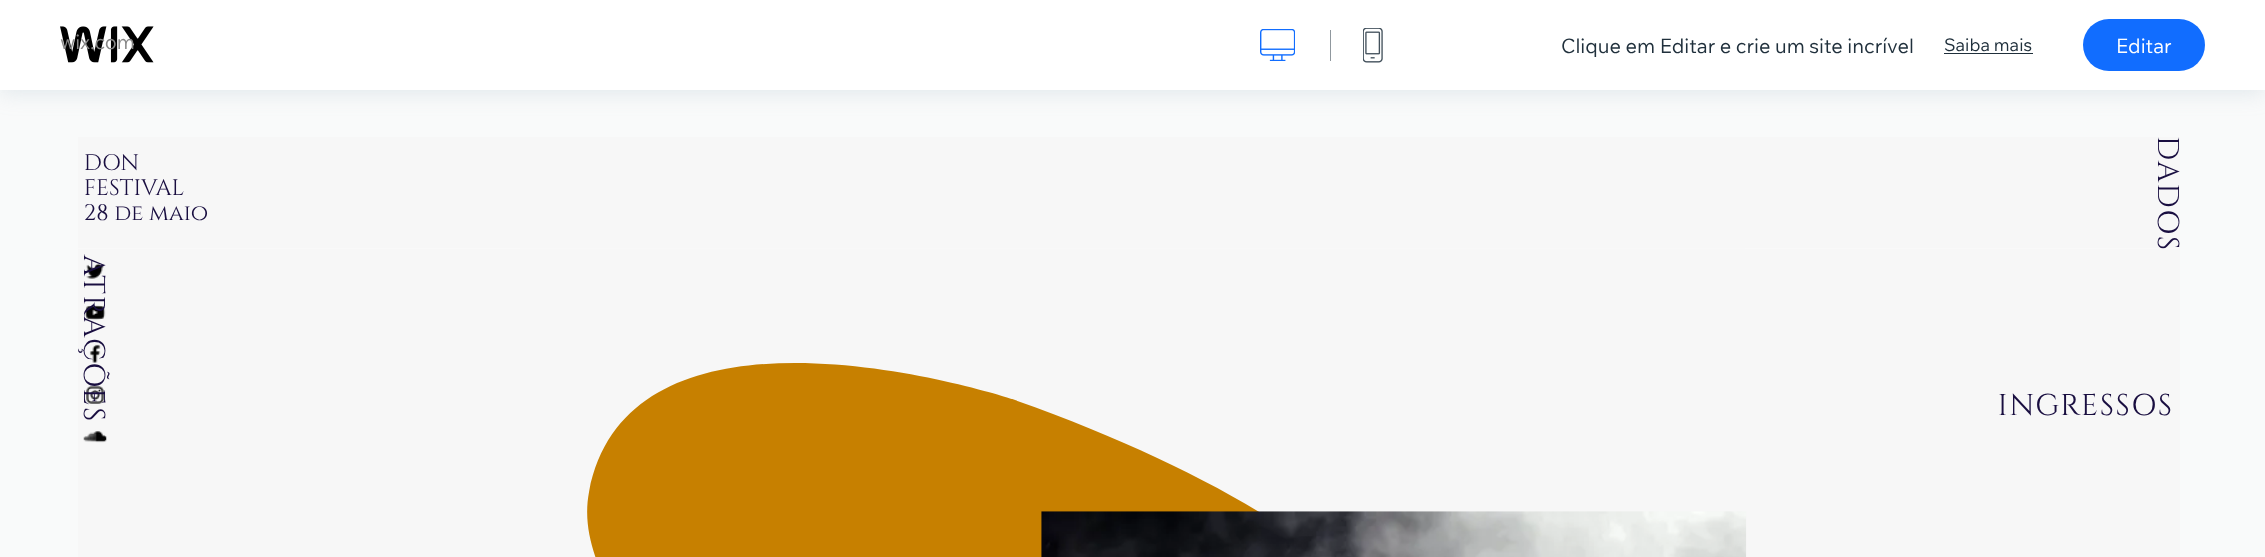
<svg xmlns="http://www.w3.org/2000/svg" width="2265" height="557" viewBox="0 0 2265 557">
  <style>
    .t1 { font: 20px Wix Madefor Text; fill: #878787; }
    .t2 { font: 20px Wix Madefor Text; fill: #20303c; }
    .t3 { font: 17.5px Wix Madefor Text; fill: #20303c; }
    .t4 { font: 20px Wix Madefor Text; fill: #fff; }
  </style>
  <rect width="100%" height="100%" fill="#f9fafa"/>
  <rect x="0" y="3" width="2265" height="90" fill="#81a2b633" filter="blur(11px)"/>
  <rect x="0" y="0" width="2265" height="90" fill="#fff"/>
  <image x="60" y="26" width="94" height="37" href="images/1.png"/>
  <text x="60" y="49" class="t1">wix.com</text>
  <image x="1260" y="29" width="35" height="32" href="images/2.png"/>
  <rect x="1330" y="30" width="1" height="31" fill="#90989e"/>
  <image x="1363" y="28" width="20" height="35" href="images/3.png"/>
  <text x="1561" y="53" class="t2">Clique em Editar e crie um site incrível</text>
  <text x="1944" y="51" class="t3">Saiba mais</text>
  <rect x="1944" y="53" width="89" height="1" fill="#20303c"/>
  <rect x="2083" y="19" width="122" height="52" rx="26" fill="#116dff"/>
  <text x="2116" y="53" class="t4">Editar</text>
  <image x="78" y="137" width="2102" height="420" href="images/4.png"/>
</svg>
